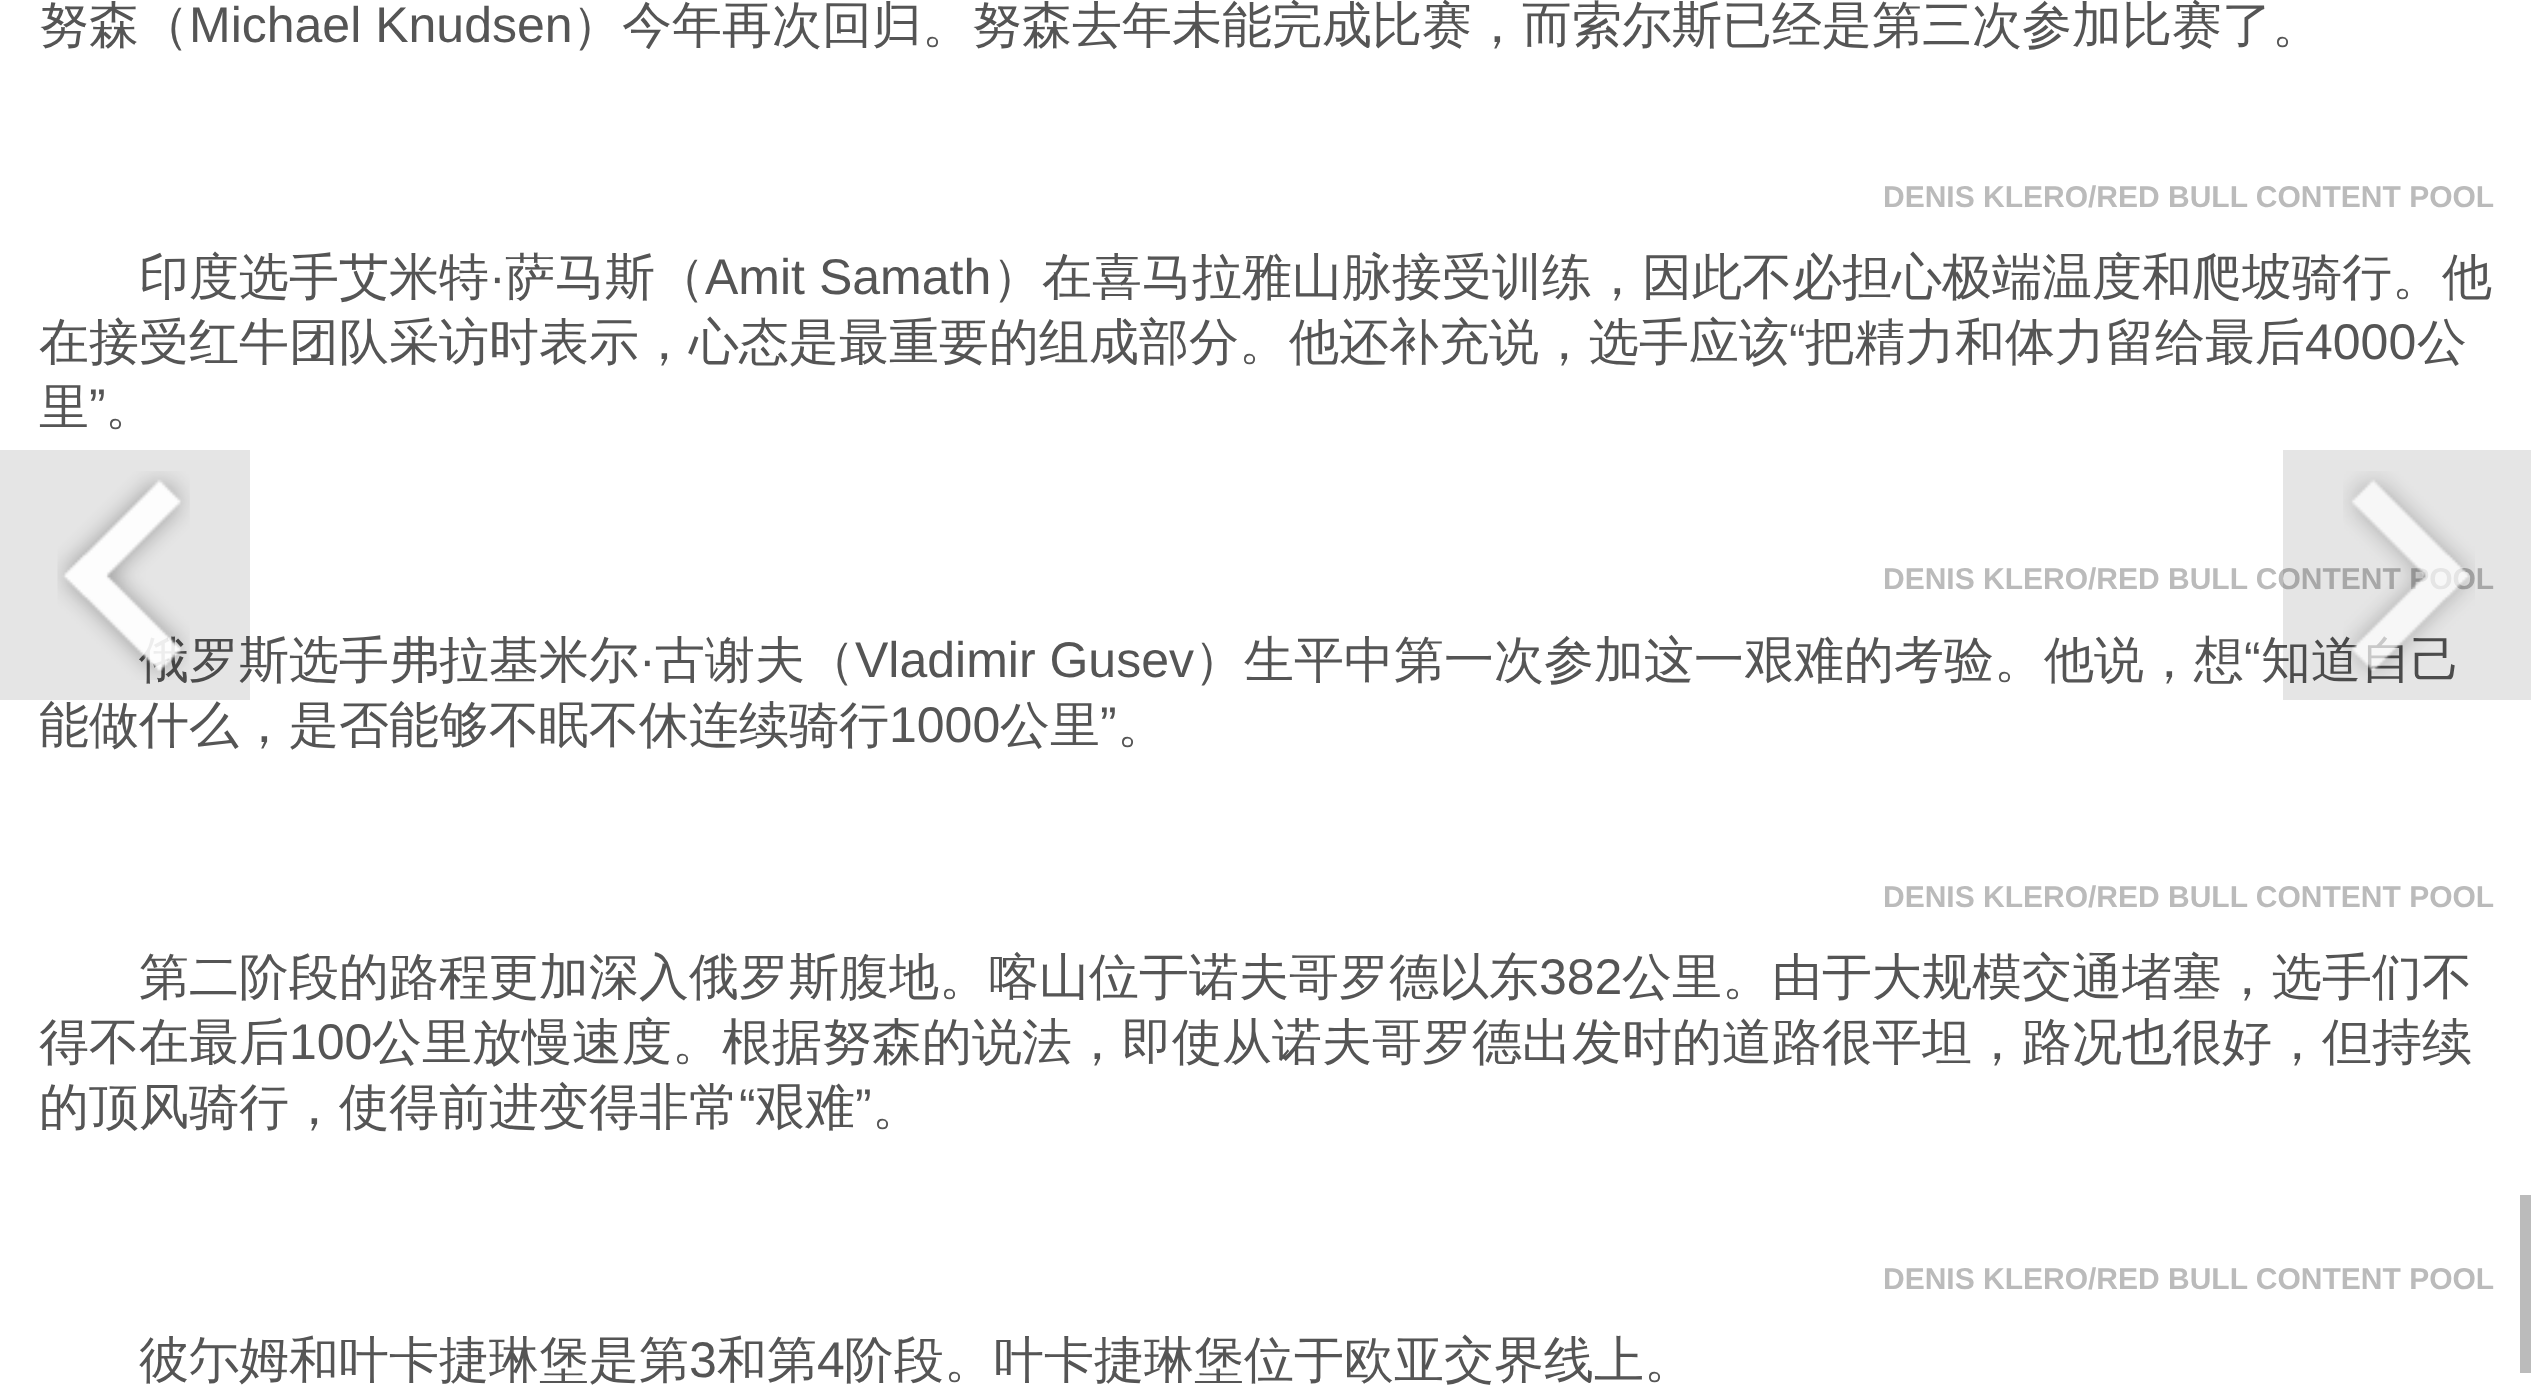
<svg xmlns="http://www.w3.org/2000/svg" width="2531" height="1397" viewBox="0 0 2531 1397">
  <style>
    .t1 { font: 500 50px WenQuanYi Zen Hei; fill: #555; }
    .t2 { font: 50px Liberation Sans; fill: #555; }
    .t3 { font: bold 30px Liberation Sans; fill: #bbb; }
  </style>
  <rect width="100%" height="100%" fill="#fff"/>
  <text x="39" y="42" class="t1">努森（</text>
  <text x="189" y="42" class="t2">Michael Knudsen</text>
  <text x="572" y="42" class="t1">）今年再次回归。努森去年未能完成比赛，而索尔斯已经是第三次参加比赛了。</text>
  <text x="1883" y="207" class="t3">DENIS KLERO/RED BULL CONTENT POOL</text>
  <text x="139" y="294" class="t1">印度选手艾米特</text>
  <text x="489" y="294" class="t2">·</text>
  <text x="505" y="294" class="t1">萨马斯（</text>
  <text x="705" y="294" class="t2">Amit Samath</text>
  <text x="992" y="294" class="t1">）在喜马拉雅山脉接受训练，因此不必担心极端温度和爬坡骑行。他</text>
  <text x="39" y="359" class="t1">在接受红牛团队采访时表示，心态是最重要的组成部分。他还补充说，选手应该</text>
  <text x="1789" y="359" class="t2">“</text>
  <text x="1805" y="359" class="t1">把精力和体力留给最后</text>
  <text x="2305" y="359" class="t2">4000</text>
  <text x="2417" y="359" class="t1">公</text>
  <text x="39" y="424" class="t1">里</text>
  <text x="89" y="424" class="t2">”</text>
  <text x="105" y="424" class="t1">。</text>
  <text x="1883" y="589" class="t3">DENIS KLERO/RED BULL CONTENT POOL</text>
  <text x="139" y="677" class="t1">俄罗斯选手弗拉基米尔</text>
  <text x="655" y="677" class="t1">古谢夫（</text>
  <text x="855" y="677" class="t2">Vladimir Gusev</text>
  <text x="1194" y="677" class="t1">）生平中第一次参加这一艰难的考验。他说，想</text>
  <text x="2244" y="677" class="t2">“</text>
  <text x="2261" y="677" class="t1">知道自己</text>
  <text x="639" y="677" class="t2">·</text>
  <text x="39" y="742" class="t1">能做什么，是否能够不眠不休连续骑行</text>
  <text x="889" y="742" class="t2">1000</text>
  <text x="1000" y="742" class="t1">公里</text>
  <text x="1100" y="742" class="t2">”</text>
  <text x="1117" y="742" class="t1">。</text>
  <text x="1883" y="907" class="t3">DENIS KLERO/RED BULL CONTENT POOL</text>
  <text x="139" y="994" class="t1">第二阶段的路程更加深入俄罗斯腹地。喀山位于诺夫哥罗德以东</text>
  <text x="1539" y="994" class="t2">382</text>
  <text x="1622" y="994" class="t1">公里。由于大规模交通堵塞，选手们不</text>
  <text x="39" y="1059" class="t1">得不在最后</text>
  <text x="289" y="1059" class="t2">100</text>
  <text x="372" y="1059" class="t1">公里放慢速度。根据努森的说法，即使从诺夫哥罗德出发时的道路很平坦，路况也很好，但持续</text>
  <text x="39" y="1124" class="t1">的顶风骑行，使得前进变得非常</text>
  <text x="739" y="1124" class="t2">“</text>
  <text x="755" y="1124" class="t1">艰难</text>
  <text x="855" y="1124" class="t2">”</text>
  <text x="872" y="1124" class="t1">。</text>
  <text x="1883" y="1289" class="t3">DENIS KLERO/RED BULL CONTENT POOL</text>
  <text x="139" y="1377" class="t1">彼尓姆和叶卡捷琳堡是第</text>
  <text x="689" y="1377" class="t2">3</text>
  <text x="717" y="1377" class="t1">和第</text>
  <text x="817" y="1377" class="t2">4</text>
  <text x="844" y="1377" class="t1">阶段。叶卡捷琳堡位于欧亚交界线上。</text>
  <rect x="0" y="450" width="250" height="250" fill="#0000001a"/>
  <image x="57" y="471" width="133" height="209" href="images/1.png"/>
  <rect x="2283" y="450" width="248" height="250" fill="#0000001a"/>
  <image x="2343" y="471" width="132" height="209" href="images/2.png"/>
  <rect x="2520" y="1195" width="11" height="178" fill="#bbb"/>
</svg>
